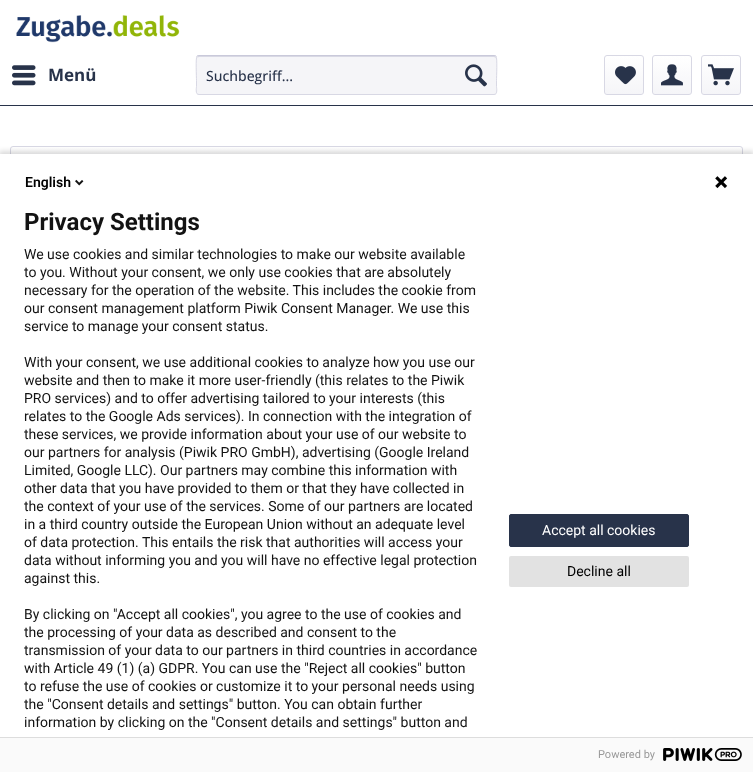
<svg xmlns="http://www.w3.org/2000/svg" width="753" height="772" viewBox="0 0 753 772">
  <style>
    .t1 { font: bold 17px Open Sans; fill: #28334a; }
    .t2 { font: 500 14px Open Sans; fill: #28334a; }
    .t3 { font: 600 14px Roboto; fill: #000; }
    .t4 { font: bold 24px Roboto; fill: #131313; }
    .t5 { font: 14px Roboto; fill: #131313; }
    .t6 { font: 14px Roboto; fill: #fff; }
    .t7 { font: 14px Roboto; fill: #000; }
    .t8 { font: 11px Roboto; fill: #999; }
  </style>
  <defs>
    <linearGradient id="g1" gradientUnits="userSpaceOnUse" x1="624" y1="56" x2="624" y2="94"><stop offset="0" stop-color="#fff"/><stop offset="1" stop-color="#f5f5f8"/></linearGradient>
    <linearGradient id="g2" gradientUnits="userSpaceOnUse" x1="672" y1="56" x2="672" y2="94"><stop offset="0" stop-color="#fff"/><stop offset="1" stop-color="#f5f5f8"/></linearGradient>
    <linearGradient id="g3" gradientUnits="userSpaceOnUse" x1="721" y1="56" x2="721" y2="94"><stop offset="0" stop-color="#fff"/><stop offset="1" stop-color="#f5f5f8"/></linearGradient>
    <linearGradient id="g4" gradientUnits="userSpaceOnUse" x1="377" y1="147" x2="377" y2="183"><stop offset="0" stop-color="#fff"/><stop offset="1" stop-color="#f5f5f8"/></linearGradient>
  </defs>
  <rect width="100%" height="100%" fill="#fff"/>
  <rect x="0" y="105" width="753" height="1" fill="#28334a"/>
  <image x="16" y="15" width="164" height="28" href="images/1.png"/>
  <image x="12" y="65" width="24" height="21" href="images/2.png"/>
  <text x="48" y="81" class="t1">Menü</text>
  <rect x="196" y="55" width="301" height="40" rx="3" fill="#f5f5f8"/>
  <path d="M199 57H494C495 57 496 58 496 59C496 58 496 56 494 56H198L197 59C197 58 198 57 199 57Z" fill="#d8d8e4"/>
  <path d="M197 56L199 55.5H494L496 56" fill="none" stroke="#c9c9da"/>
  <path d="M496 56C497.5 58 496.5 77 496.5 80.5V86.5C496.5 88 498 94.5 494 94.5H199C195 94.5 196.5 88 196.5 86.5V80.5C196.5 77 195.5 58 197 56" fill="none" stroke="#d8d8e4"/>
  <text x="206" y="81" class="t2">Suchbegriff...</text>
  <image x="465" y="64" width="22" height="23" href="images/3.png"/>
  <rect x="605" y="56" width="38" height="38" rx="2" fill="url(#g1)"/>
  <rect x="604.5" y="55.5" width="39" height="39" rx="2.5" fill="none" stroke="#d8d8e4"/>
  <image x="615" y="66" width="21" height="19" href="images/4.png"/>
  <rect x="653" y="56" width="38" height="38" rx="2" fill="url(#g2)"/>
  <rect x="652.5" y="55.5" width="39" height="39" rx="2.5" fill="none" stroke="#d8d8e4"/>
  <image x="661" y="64" width="22" height="22" href="images/5.png"/>
  <rect x="702" y="56" width="38" height="38" rx="2" fill="url(#g3)"/>
  <rect x="701.5" y="55.5" width="39" height="39" rx="2.5" fill="none" stroke="#d8d8e4"/>
  <image x="708" y="64" width="26" height="22" href="images/6.png"/>
  <rect x="11" y="147" width="731" height="36" rx="2" fill="url(#g4)"/>
  <rect x="10.5" y="146.5" width="732" height="37" rx="2.5" fill="none" stroke="#d8d8e4"/>
  <rect x="-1" y="151" width="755" height="620" fill="#00000024" filter="blur(2.5px)"/>
  <rect x="0" y="154" width="753" height="583" fill="#fff"/>
  <text x="25" y="187" class="t3">English</text>
  <image x="75" y="179" width="9" height="7" href="images/7.png"/>
  <image x="715" y="176" width="13" height="13" href="images/8.png"/>
  <text x="24" y="230" class="t4">Privacy Settings</text>
  <text x="24" y="259" class="t5">We use cookies and similar technologies to make our website available</text>
  <text x="24" y="277" class="t5">to you. Without your consent, we only use cookies that are absolutely</text>
  <text x="24" y="295" class="t5">necessary for the operation of the website. This includes the cookie from</text>
  <text x="24" y="313" class="t5">our consent management platform Piwik Consent Manager. We use this</text>
  <text x="24" y="331" class="t5">service to manage your consent status.</text>
  <text x="24" y="367" class="t5">With your consent, we use additional cookies to analyze how you use our</text>
  <text x="24" y="385" class="t5">website and then to make it more user-friendly (this relates to the Piwik</text>
  <text x="24" y="403" class="t5">PRO services) and to offer advertising tailored to your interests (this</text>
  <text x="24" y="421" class="t5">relates to the Google Ads services). In connection with the integration of</text>
  <text x="24" y="439" class="t5">these services, we provide information about your use of our website to</text>
  <text x="24" y="457" class="t5">our partners for analysis (Piwik PRO GmbH), advertising (Google Ireland</text>
  <text x="24" y="475" class="t5">Limited, Google LLC). Our partners may combine this information with</text>
  <text x="24" y="493" class="t5">other data that you have provided to them or that they have collected in</text>
  <text x="24" y="511" class="t5">the context of your use of the services. Some of our partners are located</text>
  <text x="24" y="529" class="t5">in a third country outside the European Union without an adequate level</text>
  <text x="24" y="547" class="t5">of data protection. This entails the risk that authorities will access your</text>
  <text x="24" y="565" class="t5">data without informing you and you will have no effective legal protection</text>
  <text x="24" y="583" class="t5">against this.</text>
  <text x="24" y="619" class="t5">By clicking on "Accept all cookies", you agree to the use of cookies and</text>
  <text x="24" y="637" class="t5">the processing of your data as described and consent to the</text>
  <text x="24" y="655" class="t5">transmission of your data to our partners in third countries in accordance</text>
  <text x="24" y="673" class="t5">with Article 49 (1) (a) GDPR. You can use the "Reject all cookies" button</text>
  <text x="24" y="691" class="t5">to refuse the use of cookies or customize it to your personal needs using</text>
  <text x="24" y="709" class="t5">the "Consent details and settings" button. You can obtain further</text>
  <text x="24" y="727" class="t5">information by clicking on the "Consent details and settings" button and</text>
  <rect x="509.5" y="514.5" width="179" height="32" rx="1.5" fill="#28334a" stroke="#28334a"/>
  <text x="542" y="535" class="t6">Accept all cookies</text>
  <rect x="509" y="556" width="180" height="31" rx="2" fill="#e2e2e2"/>
  <text x="567" y="576" class="t7">Decline all</text>
  <rect x="0" y="738" width="753" height="34" fill="#fafafa"/>
  <rect x="0" y="737" width="753" height="1" fill="#ddd"/>
  <text x="598" y="758" class="t8">Powered by</text>
  <image x="663" y="748" width="79" height="13" href="images/9.png"/>
</svg>
